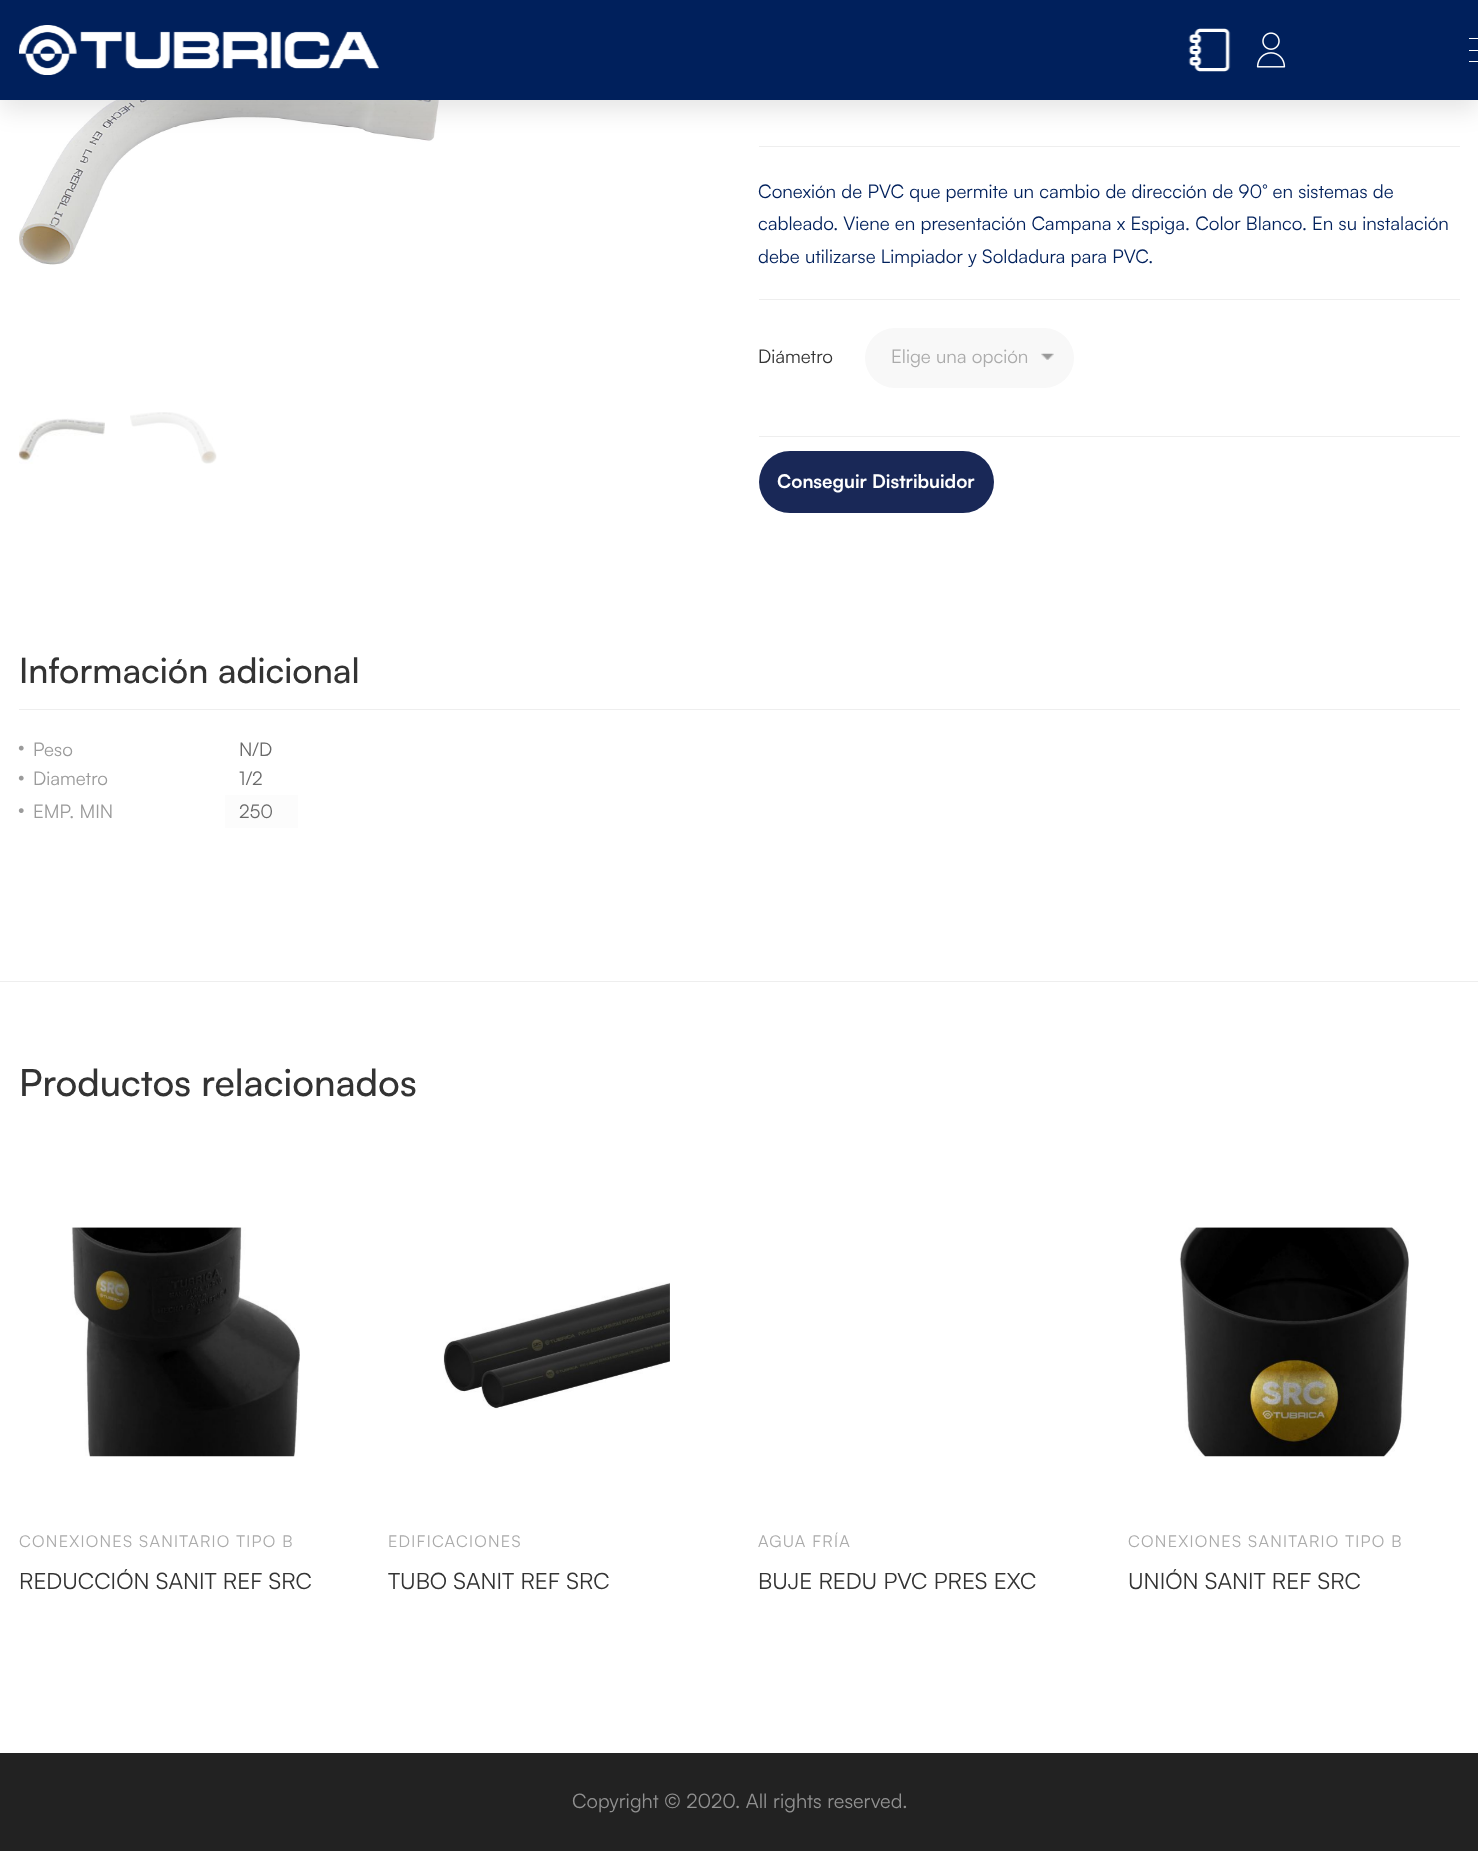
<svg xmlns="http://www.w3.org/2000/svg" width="1478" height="1851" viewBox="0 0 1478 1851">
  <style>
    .t1 { font: 18.75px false; fill: #00205c; }
    .t2 { font: 18.75px false; fill: #333; }
    .t3 { font: 18.75px false; fill: #ababab; }
    .t4 { font: bold 18.75px false; fill: #fff; }
    .t5 { font: 500 35px Satoshi; fill: #333; }
    .t6 { font: 18.75px false; fill: #9b9b9b; }
    .t7 { font: 18.75px false; fill: #696969; }
    .t8 { font: 500 37.5px Satoshi; fill: #333; }
    .t9 { font: 16.25px false; letter-spacing: 1.25px; fill: #ababab; }
    .t10 { font: 22.5px false; fill: #333; }
    .t11 { font: 20px false; fill: #919191; }
  </style>
  <rect width="100%" height="100%" fill="#fff"/>
  <image x="19" y="100" width="421" height="165" href="images/4.png"/>
  <rect x="759" y="146" width="701" height="1" fill="#eee"/>
  <rect x="0" y="10" width="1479" height="100" fill="#0000001a" filter="blur(12.5px)"/>
  <rect x="0" y="0" width="1478" height="100" fill="#00205c"/>
  <image x="19" y="25" width="360" height="50" href="images/1.png"/>
  <image x="1188" y="28" width="43" height="44" href="images/2.png"/>
  <image x="1256" y="32" width="30" height="36" href="images/3.png"/>
  <rect x="1469" y="38" width="9" height="1" fill="#fcfdfd"/>
  <rect x="1469" y="50" width="9" height="1" fill="#fcfdfd"/>
  <rect x="1469" y="61" width="9" height="1" fill="#fcfdfd"/>
  <image x="18" y="418" width="87" height="46" href="images/5.png"/>
  <image x="130" y="412" width="87" height="52" href="images/6.png"/>
  <text x="758" y="198" class="t1">Conexión de PVC que permite un cambio de dirección de 90° en sistemas de</text>
  <text x="758" y="230" class="t1">cableado. Viene en presentación Campana x Espiga. Color Blanco. En su instalación</text>
  <text x="758" y="263" class="t1">debe utilizarse Limpiador y Soldadura para PVC.</text>
  <rect x="759" y="299" width="701" height="1" fill="#eee"/>
  <rect x="759" y="436" width="701" height="1" fill="#eee"/>
  <text x="758" y="363" class="t2">Diámetro</text>
  <rect x="865" y="328" width="209" height="60" rx="30" fill="#f8f8f8"/>
  <image x="1041" y="353" width="13" height="7" href="images/7.png"/>
  <text x="891" y="363" class="t3">Elige una opción</text>
  <rect x="759" y="451" width="235" height="62" rx="31" fill="#192857"/>
  <text x="777" y="488" class="t4">Conseguir Distribuidor</text>
  <rect x="19" y="709" width="1441" height="1" fill="#eee"/>
  <text x="19" y="683" class="t5">Información adicional</text>
  <image x="18" y="745" width="6" height="6" href="images/8.png"/>
  <text x="33" y="756" class="t6">Peso</text>
  <text x="239" y="756" class="t7">N/D</text>
  <image x="18" y="775" width="6" height="6" href="images/8.png"/>
  <text x="33" y="785" class="t6">Diametro</text>
  <text x="239" y="785" class="t7">1/2</text>
  <image x="18" y="808" width="6" height="5" href="images/9.png"/>
  <text x="33" y="818" class="t6">EMP. MIN</text>
  <rect x="225" y="795" width="73" height="33" fill="#fcfcfc"/>
  <text x="239" y="818" class="t7">250</text>
  <rect x="0" y="981" width="1478" height="1" fill="#eee"/>
  <text x="19" y="1096" class="t8">Productos relacionados</text>
  <image x="71" y="1227" width="229" height="230" href="images/10.png"/>
  <text x="19" y="1547" class="t9">CONEXIONES SANITARIO TIPO B</text>
  <text x="19" y="1589" class="t10">REDUCCIÓN SANIT REF SRC</text>
  <image x="443" y="1282" width="227" height="127" href="images/11.png"/>
  <text x="388" y="1547" class="t9">EDIFICACIONES</text>
  <text x="388" y="1589" class="t10">TUBO SANIT REF SRC</text>
  <text x="758" y="1547" class="t9">AGUA FRÍA</text>
  <text x="758" y="1589" class="t10">BUJE REDU PVC PRES EXC</text>
  <image x="1179" y="1227" width="230" height="230" href="images/12.png"/>
  <text x="1128" y="1547" class="t9">CONEXIONES SANITARIO TIPO B</text>
  <text x="1128" y="1589" class="t10">UNIÓN SANIT REF SRC</text>
  <rect x="0" y="1753" width="1478" height="98" fill="#222"/>
  <text x="572" y="1808" class="t11">Copyright © 2020. All rights reserved.</text>
</svg>
